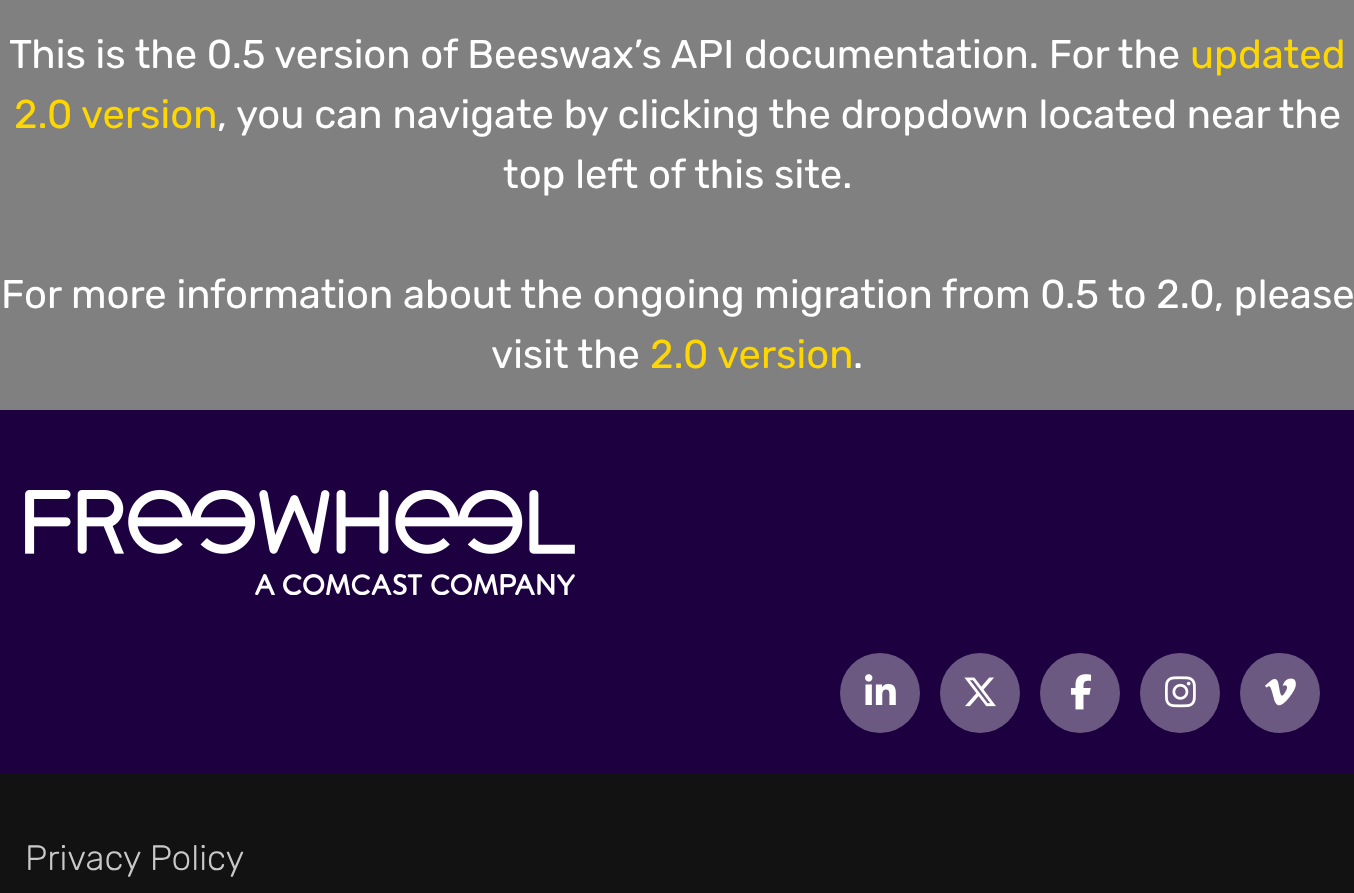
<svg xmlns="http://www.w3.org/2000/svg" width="1354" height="893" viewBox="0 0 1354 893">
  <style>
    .t1 { font: 40px Rubik; fill: #fff; }
    .t2 { font: 40px Rubik; fill: #ffd700; }
    .t3 { font: 300 35.25px Rubik; fill: #c8c8c8; }
  </style>
  <rect width="100%" height="100%" fill="#808080"/>
  <text x="9" y="68" class="t1">This is the 0.5 version of Beeswax’s API documentation. For the</text>
  <text x="1190" y="68" class="t2">updated</text>
  <text x="14" y="128" class="t2">2.0 version</text>
  <text x="217" y="128" class="t1">,</text>
  <text x="236" y="128" class="t1">you can navigate by clicking the dropdown located near the</text>
  <text x="503" y="188" class="t1">top left of this site.</text>
  <text x="1" y="308" class="t1">For more information about the ongoing migration from 0.5 to 2.0, please</text>
  <text x="491" y="368" class="t1">visit the</text>
  <text x="650" y="368" class="t2">2.0 version</text>
  <text x="853" y="368" class="t1">.</text>
  <rect x="0" y="410" width="1354" height="363" fill="#1c003f"/>
  <image x="25" y="490" width="550" height="105" href="images/1.png"/>
  <circle cx="880" cy="693" r="40" fill="#6b5982"/>
  <image x="865" y="674" width="31" height="31" href="images/2.png"/>
  <circle cx="980" cy="693" r="40" fill="#6b5982"/>
  <image x="964" y="677" width="32" height="30" href="images/3.png"/>
  <circle cx="1080" cy="693" r="40" fill="#6b5982"/>
  <image x="1070" y="674" width="22" height="36" href="images/4.png"/>
  <circle cx="1180" cy="693" r="40" fill="#6b5982"/>
  <image x="1165" y="676" width="31" height="32" href="images/5.png"/>
  <circle cx="1280" cy="693" r="40" fill="#6b5982"/>
  <image x="1265" y="678" width="31" height="28" href="images/6.png"/>
  <rect x="0" y="773" width="1354" height="120" fill="#121212"/>
  <text x="25" y="870" class="t3">Privacy Policy</text>
</svg>
